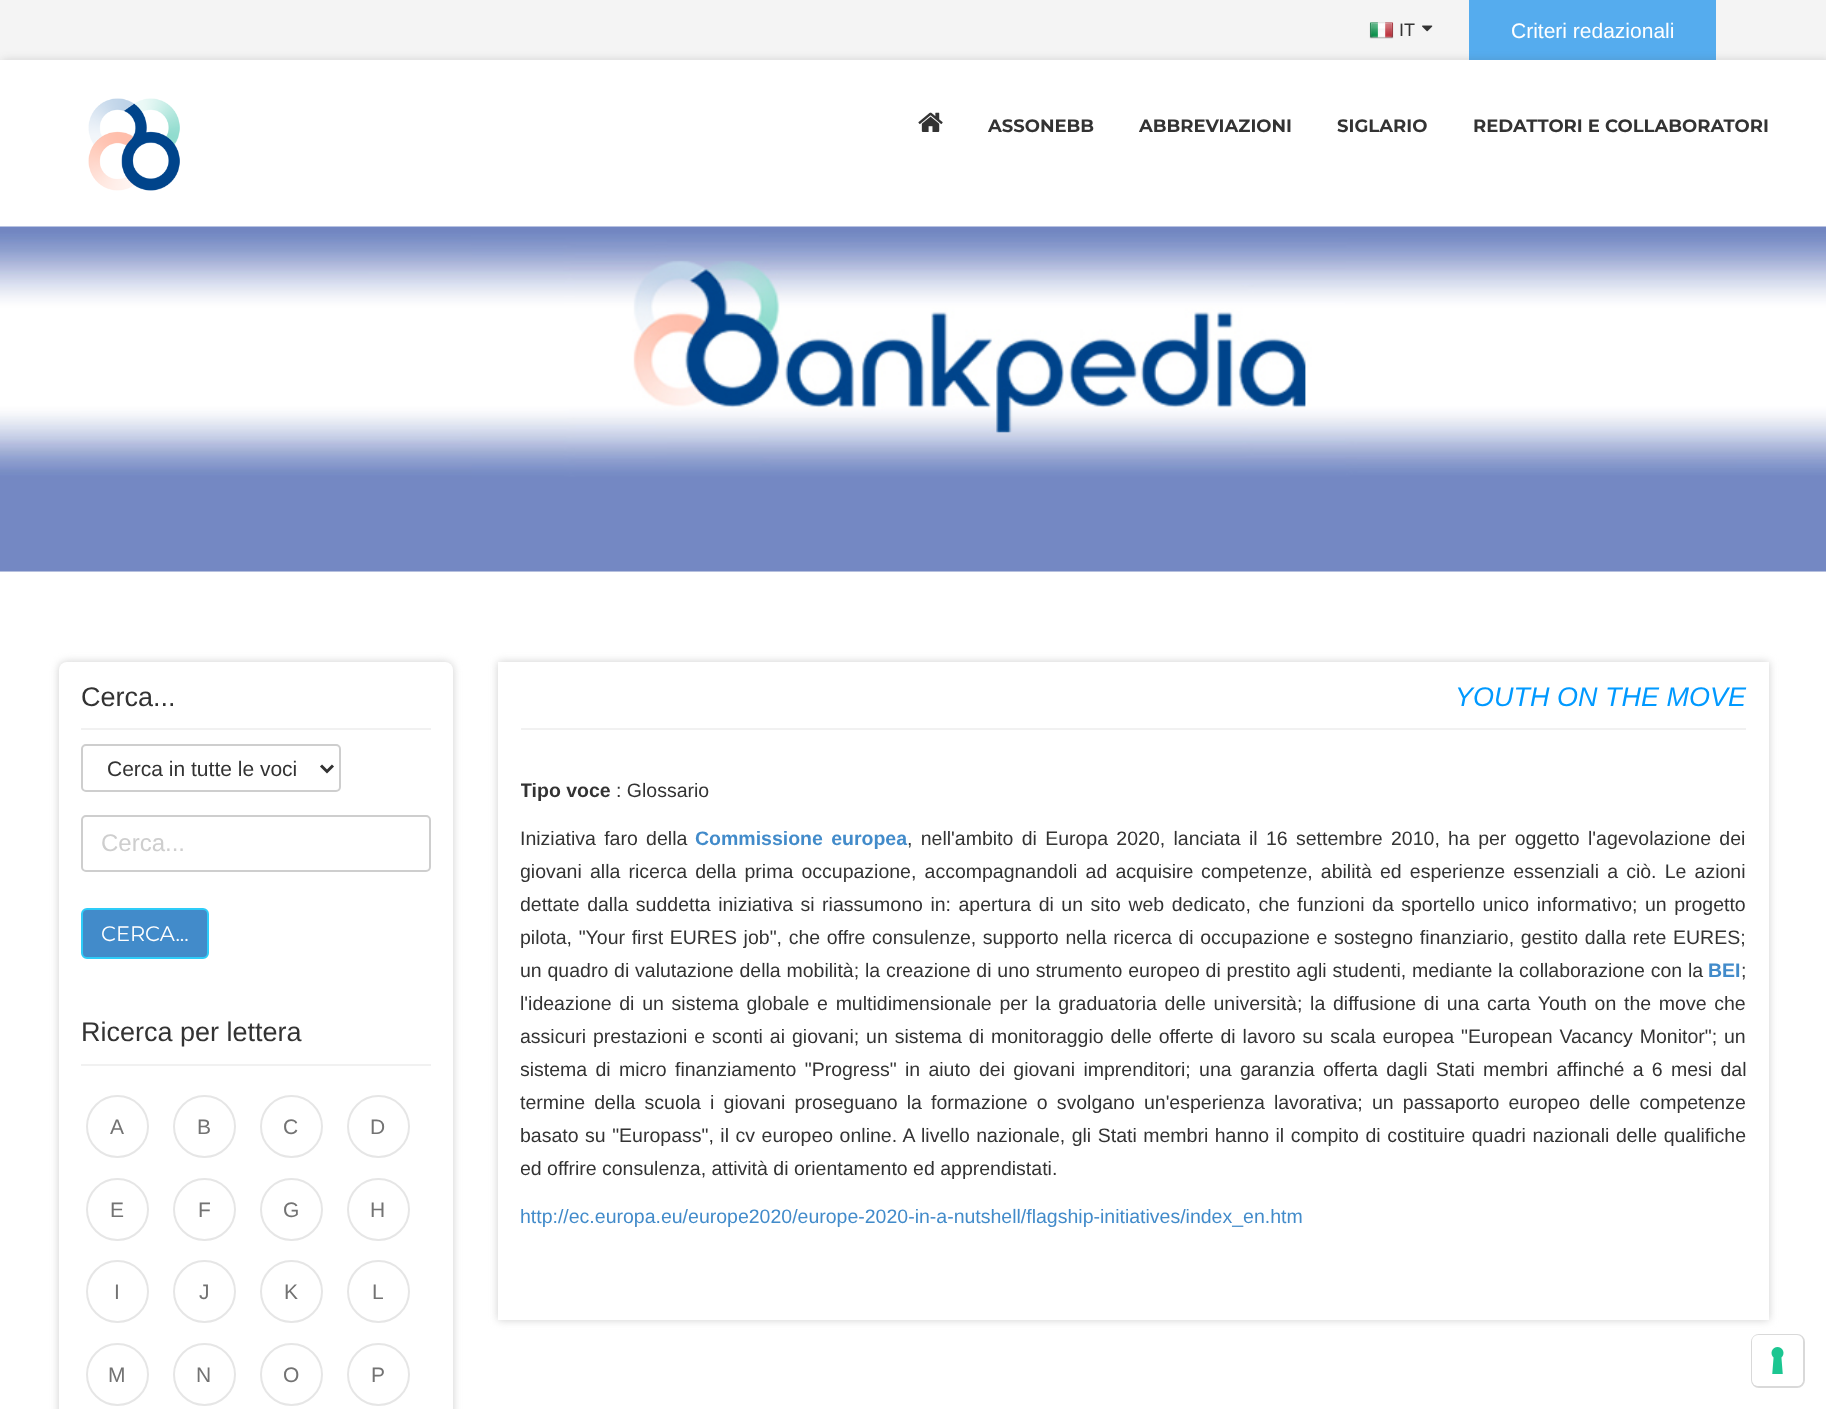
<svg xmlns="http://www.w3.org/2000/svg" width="1826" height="1409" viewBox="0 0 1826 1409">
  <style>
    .t1 { font: 18px Liberation Sans; fill: #333; }
    .t2 { font: 21px Liberation Sans; fill: #fff; }
    .t3 { font: bold 18px Montserrat; fill: #333; }
    .t4 { font: 27px Liberation Sans; fill: #333; }
    .t5 { font: 21px Liberation Sans; fill: #333; }
    .t6 { font: 24px Liberation Sans; fill: #cecece; }
    .t7 { font: 21px Montserrat; fill: #fff; }
    .t8 { font: 21px Liberation Sans; fill: #737373; }
    .t9 { font: italic 27px Liberation Sans; fill: #09f; }
    .t10 { font: bold 19.5px Liberation Sans; fill: #333; }
    .t11 { font: 19.5px Liberation Sans; fill: #333; }
    .t12 { font: bold 19.5px Liberation Sans; fill: #428bca; }
    .t13 { font: 19.5px Liberation Sans; fill: #428bca; }
  </style>
  <defs>
    <clipPath id="clip1"><rect x="521" y="774" width="1225" height="524" rx="9"/></clipPath>
  </defs>
  <rect width="100%" height="100%" fill="#f8f8f8"/>
  <rect x="0" y="0" width="1826" height="60" fill="#f4f4f4"/>
  <image x="1369" y="22" width="25" height="17" href="images/1.png"/>
  <text x="1399" y="36" class="t1">IT</text>
  <image x="1422" y="25" width="11" height="7" href="images/2.png"/>
  <rect x="1469" y="0" width="247" height="60" fill="#55acee"/>
  <text x="1511" y="38" class="t2">Criteri redazionali</text>
  <rect x="2" y="60" width="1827" height="167" fill="#4d4d4d33" filter="blur(4px)"/>
  <rect x="0" y="60" width="1826" height="167" fill="#fff"/>
  <image x="88" y="98" width="92" height="93" href="images/3.png"/>
  <image x="918" y="112" width="25" height="20" href="images/4.png"/>
  <text x="988" y="132" class="t3">ASSONEBB</text>
  <text x="1139" y="132" class="t3">ABBREVIAZIONI</text>
  <text x="1337" y="132" class="t3">SIGLARIO</text>
  <text x="1473" y="132" class="t3">REDATTORI E COLLABORATORI</text>
  <image x="0" y="226" width="1826" height="346" href="images/5.png"/>
  <rect x="0" y="572" width="1826" height="837" fill="#fff"/>
  <rect x="59" y="662" width="394" height="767" rx="8" fill="#cecece" filter="blur(4px)"/>
  <rect x="59" y="662" width="394" height="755" rx="8" fill="#fff"/>
  <rect x="81" y="728" width="350" height="2" fill="#f1f1f1"/>
  <text x="81" y="706" class="t4">Cerca...</text>
  <rect x="82" y="745" width="258" height="46" rx="4" fill="none" stroke="#cecece" stroke-width="2"/>
  <path d="M321 765.5L327 771.5L333 765.5" fill="none" stroke="#333" stroke-width="3"/>
  <text x="107" y="776" class="t5">Cerca in tutte le voci</text>
  <rect x="82" y="816" width="348" height="55" rx="4" fill="none" stroke="#cecece" stroke-width="2"/>
  <text x="101" y="851" class="t6">Cerca...</text>
  <rect x="82" y="909" width="126" height="49" rx="5" fill="#428bca" stroke="#2eccf8" stroke-width="2"/>
  <text x="101" y="941" class="t7">CERCA...</text>
  <rect x="81" y="1064" width="350" height="2" fill="#f1f1f1"/>
  <text x="81" y="1041" class="t4">Ricerca per lettera</text>
  <circle cx="117.5" cy="1126.5" r="30.5" fill="none" stroke="#e6e6e6" stroke-width="2"/>
  <text x="110" y="1134" class="t8">A</text>
  <circle cx="204.5" cy="1126.5" r="30.5" fill="none" stroke="#e6e6e6" stroke-width="2"/>
  <text x="197" y="1134" class="t8">B</text>
  <circle cx="291.5" cy="1126.5" r="30.5" fill="none" stroke="#e6e6e6" stroke-width="2"/>
  <text x="283" y="1134" class="t8">C</text>
  <circle cx="378.5" cy="1126.5" r="30.5" fill="none" stroke="#e6e6e6" stroke-width="2"/>
  <text x="370" y="1134" class="t8">D</text>
  <circle cx="117.5" cy="1209.5" r="30.5" fill="none" stroke="#e6e6e6" stroke-width="2"/>
  <text x="110" y="1217" class="t8">E</text>
  <circle cx="204.5" cy="1209.5" r="30.5" fill="none" stroke="#e6e6e6" stroke-width="2"/>
  <text x="198" y="1217" class="t8">F</text>
  <circle cx="291.5" cy="1209.5" r="30.5" fill="none" stroke="#e6e6e6" stroke-width="2"/>
  <text x="283" y="1217" class="t8">G</text>
  <circle cx="378.5" cy="1209.5" r="30.5" fill="none" stroke="#e6e6e6" stroke-width="2"/>
  <text x="370" y="1217" class="t8">H</text>
  <circle cx="117.5" cy="1291.5" r="30.5" fill="none" stroke="#e6e6e6" stroke-width="2"/>
  <text x="114" y="1299" class="t8">I</text>
  <circle cx="204.5" cy="1291.5" r="30.5" fill="none" stroke="#e6e6e6" stroke-width="2"/>
  <text x="199" y="1299" class="t8">J</text>
  <circle cx="291.5" cy="1291.5" r="30.5" fill="none" stroke="#e6e6e6" stroke-width="2"/>
  <text x="284" y="1299" class="t8">K</text>
  <circle cx="378.5" cy="1291.5" r="30.5" fill="none" stroke="#e6e6e6" stroke-width="2"/>
  <text x="372" y="1299" class="t8">L</text>
  <circle cx="117.5" cy="1374.5" r="30.5" fill="none" stroke="#e6e6e6" stroke-width="2"/>
  <text x="108" y="1382" class="t8">M</text>
  <circle cx="204.5" cy="1374.5" r="30.5" fill="none" stroke="#e6e6e6" stroke-width="2"/>
  <text x="196" y="1382" class="t8">N</text>
  <circle cx="291.5" cy="1374.5" r="30.5" fill="none" stroke="#e6e6e6" stroke-width="2"/>
  <text x="283" y="1382" class="t8">O</text>
  <circle cx="378.5" cy="1374.5" r="30.5" fill="none" stroke="#e6e6e6" stroke-width="2"/>
  <text x="371" y="1382" class="t8">P</text>
  <rect x="498" y="662" width="1271" height="658" fill="#cecece" filter="blur(4px)"/>
  <rect x="498" y="662" width="1271" height="658" fill="#fff"/>
  <rect x="521" y="728" width="1225" height="2" fill="#f1f1f1"/>
  <text x="1455" y="706" class="t9">YOUTH ON THE MOVE</text>
  <g clip-path="url(#clip1)">
    <text x="520" y="797" class="t10">Tipo voce</text>
  </g>
  <text x="616" y="797" class="t11">: Glossario</text>
  <text x="520" y="845" word-spacing="2.9" class="t11">Iniziativa faro della</text>
  <text x="695" y="845" word-spacing="2.9" class="t12">Commissione europea</text>
  <text x="907" y="845" word-spacing="2.9" class="t11">, nell'ambito di Europa 2020, lanciata il 16 settembre 2010, ha per oggetto l'agevolazione dei</text>
  <g clip-path="url(#clip1)">
    <text x="520" y="878" word-spacing="2.75" class="t11">giovani alla ricerca della prima occupazione, accompagnandoli ad acquisire</text>
  </g>
  <text x="1201" y="878" word-spacing="2.75" class="t11">competenze, abilità ed esperienze essenziali a ciò. Le azioni</text>
  <g clip-path="url(#clip1)">
    <text x="520" y="911" word-spacing="2.1" class="t11">dettate dalla suddetta iniziativa si riassumono in: apertura di un sito web dedicato, che funzioni da sportello unico informativo; un progetto</text>
  </g>
  <text x="520" y="944" word-spacing="1.25" class="t11">pilota, "Your first EURES job", che offre consulenze, supporto nella ricerca di occupazione e sostegno finanziario, gestito dalla rete EURES;</text>
  <text x="520" y="977" word-spacing="0.4" class="t11">un quadro di valutazione della mobilità; la creazione di uno strumento europeo di prestito agli studenti, mediante la collaborazione con la</text>
  <text x="1708" y="977" class="t12">BEI</text>
  <text x="1741" y="977" class="t11">;</text>
  <text x="520" y="1010" word-spacing="2.3" class="t11">l'ideazione di un sistema globale e multidimensionale per la graduatoria delle università; la diffusione di una carta Youth on the move che</text>
  <g clip-path="url(#clip1)">
    <text x="520" y="1043" word-spacing="1.5" class="t11">assicuri prestazioni e sconti ai giovani; un sistema di monitoraggio delle offerte di lavoro su scala europea "European Vacancy Monitor"; un</text>
    <text x="520" y="1076" word-spacing="2.9" class="t11">sistema di micro finanziamento "Progress" in aiuto dei giovani imprenditori; una garanzia offerta dagli Stati membri affinché a 6 mesi dal</text>
  </g>
  <text x="520" y="1109" word-spacing="3.75" class="t11">termine della scuola i giovani proseguano la formazione o svolgano un'esperienza lavorativa; un passaporto europeo delle competenze</text>
  <text x="520" y="1142" word-spacing="1.1" class="t11">basato su "Europass", il cv europeo online. A livello nazionale, gli Stati membri hanno il compito di costituire quadri nazionali delle qualifiche</text>
  <g clip-path="url(#clip1)">
    <text x="520" y="1175" class="t11">ed offrire consulenza, attività di orientamento ed apprendistati.</text>
  </g>
  <text x="520" y="1223" class="t13">http://ec.europa.eu/europe2020/europe-2020-in-a-nutshell/flagship-initiatives/index_en.htm</text>
  <rect x="1752" y="1335" width="52" height="52" rx="7" fill="none" stroke="#d9d9d9" stroke-width="2"/>
  <rect x="1752" y="1335" width="51" height="51" rx="6" fill="#fff"/>
  <image x="1771" y="1347" width="13" height="27" href="images/6.png"/>
</svg>
